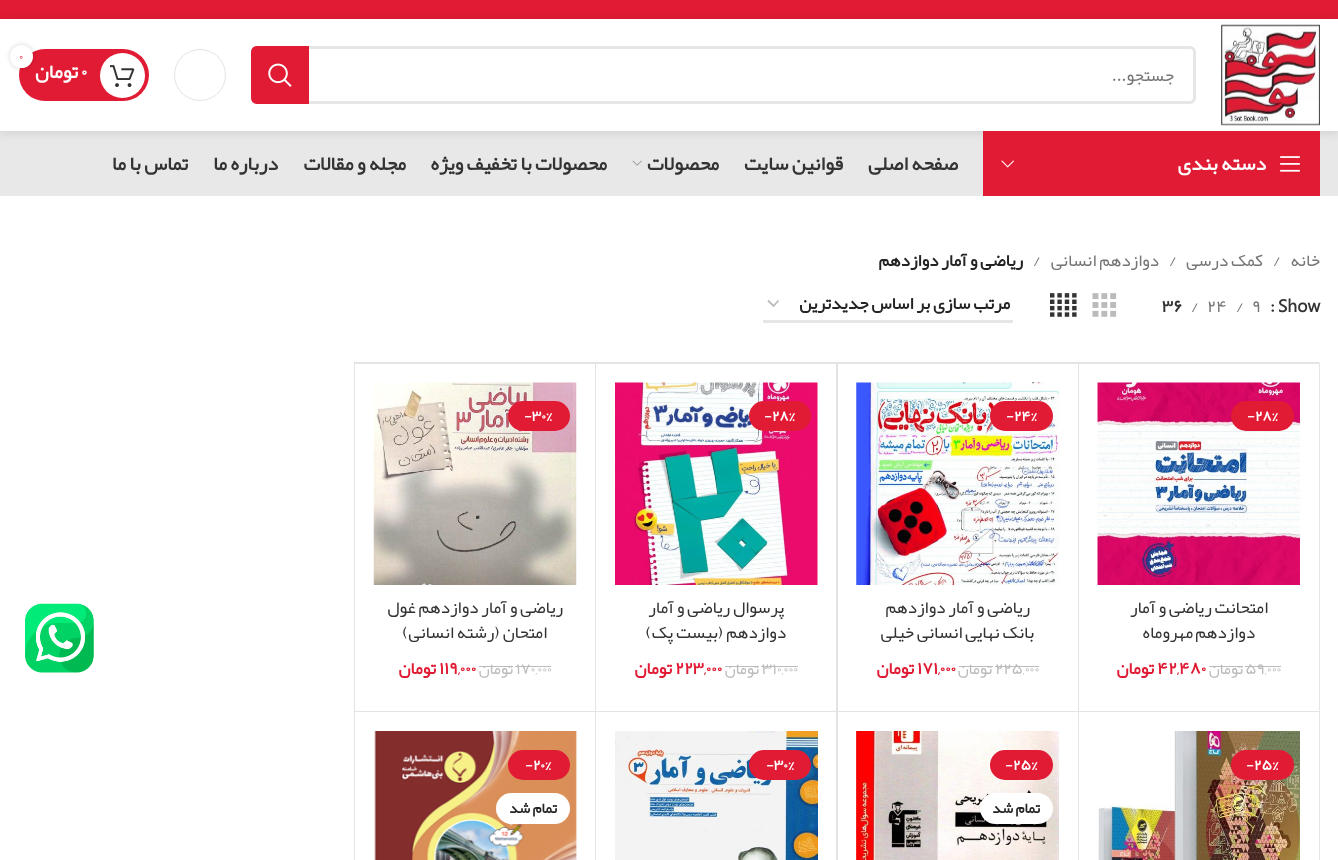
<svg xmlns="http://www.w3.org/2000/svg" width="1338" height="860" viewBox="0 0 1338 860">
  <style>
    .t1 { font: 17.5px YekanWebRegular; direction: rtl; fill: #767676; }
    .t2 { font: 14px YekanWebRegular; fill: #e11b34; }
    .t3 { font: bold 20px YekanWebRegular; fill: #fff; }
    .t4 { font: bold 20px YekanWebRegular; direction: rtl; fill: #fff; }
    .t5 { font: bold 20px YekanWebRegular; direction: rtl; fill: #333; }
    .t6 { font: 17.5px YekanWebRegular; fill: #767676; }
    .t7 { font: bold 17.5px YekanWebRegular; direction: rtl; fill: #242424; }
    .t8 { font: bold 17.5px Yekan; fill: #333; }
    .t9 { font: bold 17.5px YekanWebRegular; fill: #333; }
    .t10 { font: bold 15px YekanWebRegular; fill: #fff; }
    .t11 { font: 17.5px YekanWebRegular; direction: rtl; fill: #333; }
    .t12 { font: 16px YekanWebRegular; fill: #bbb; }
    .t13 { font: 16px YekanWebRegular; direction: rtl; fill: #bbb; }
    .t14 { font: bold 17.5px YekanWebRegular; fill: #e11b34; }
    .t15 { font: bold 17.5px YekanWebRegular; direction: rtl; fill: #e11b34; }
    .t16 { font: bold 15px YekanWebRegular; direction: rtl; fill: #242424; }
  </style>
  <defs>
    <clipPath id="clip1"><path d="M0 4H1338V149H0ZM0 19H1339V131H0Z" clip-rule="evenodd"/></clipPath>
  </defs>
  <rect width="100%" height="100%" fill="#fff"/>
  <rect x="0" y="0" width="1338" height="19" fill="#e11b34"/>
  <g clip-path="url(#clip1)">
    <rect x="0" y="20" width="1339" height="113" fill="#0000001a" filter="blur(5px)"/>
  </g>
  <image x="1221" y="24" width="99" height="102" href="images/1.png"/>
  <rect x="252.5" y="47.5" width="942" height="55" rx="4.5" fill="none" stroke="#e6e6e6" stroke-width="3"/>
  <text x="1174" y="81" class="t1">جستجو...</text>
  <path d="M257 46H309V104H257C253.5 104 251 101.5 251 98V52C251 48.5 253.5 46 257 46Z" fill="#e11b34"/>
  <image x="268" y="63" width="24" height="24" href="images/2.png"/>
  <circle cx="200" cy="75" r="25.5" fill="none" stroke="#e4e4e4"/>
  <rect x="19" y="49" width="130" height="52" rx="26" fill="#e11b34"/>
  <circle cx="122.5" cy="75.5" r="22.5" fill="#fff"/>
  <rect x="10" y="45" width="23" height="23" rx="11.5" fill="#0000002b" filter="blur(2.5px)"/>
  <circle cx="21.5" cy="56.5" r="11.5" fill="#fff"/>
  <text x="19" y="61" class="t2">۰</text>
  <image x="110" y="65" width="25" height="22" href="images/3.png"/>
  <text x="81" y="78" class="t3">۰</text>
  <text x="78" y="78" class="t4">تومان</text>
  <rect x="0" y="131" width="1338" height="65" fill="#00000017"/>
  <rect x="983" y="131" width="337" height="65" fill="#e11b34"/>
  <image x="1280" y="156" width="20" height="16" href="images/4.png"/>
  <text x="1266" y="170" class="t4">دسته بندی</text>
  <image x="1001" y="160" width="13" height="8" href="images/5.png"/>
  <text x="958" y="170" class="t5">صفحه اصلی</text>
  <text x="843" y="170" class="t5">قوانین سایت</text>
  <text x="719" y="170" class="t5">محصولات</text>
  <image x="632" y="160" width="10" height="6" href="images/6.png"/>
  <text x="607" y="170" class="t5">محصولات با تخفیف ویژه</text>
  <text x="406" y="170" class="t5">مجله و مقالات</text>
  <text x="278" y="170" class="t5">درباره ما</text>
  <text x="188" y="170" class="t5">تماس با ما</text>
  <text x="1320" y="266" class="t1">خانه</text>
  <text x="1273" y="266" class="t6">/</text>
  <text x="1263" y="266" class="t1">کمک درسی</text>
  <text x="1169" y="266" class="t6">/</text>
  <text x="1159" y="266" class="t1">دوازدهم انسانی</text>
  <text x="1033" y="266" class="t6">/</text>
  <text x="1023" y="266" class="t7">ریاضی و آمار دوازدهم</text>
  <text x="1278" y="312" class="t8">Show</text>
  <text x="1270" y="312" class="t9">:</text>
  <text x="1252" y="312" class="t6">۹</text>
  <text x="1236" y="312" class="t6">/</text>
  <text x="1207" y="312" class="t6">۲۴</text>
  <text x="1191" y="312" class="t6">/</text>
  <text x="1162" y="312" class="t9">۳۶</text>
  <image x="1092" y="293" width="25" height="24" href="images/7.png"/>
  <image x="1050" y="293" width="27" height="24" href="images/8.png"/>
  <path d="M768 300.5L773.5 306L778.5 300.5" fill="none" stroke="#bbb" stroke-width="1.8"/>
  <rect x="763" y="320" width="250" height="3" fill="#e6e6e6"/>
  <text x="1010" y="309" class="t7">مرتب سازی بر اساس جدیدترین</text>
  <rect x="1319" y="363" width="1" height="497" fill="#e4e4e4"/>
  <path d="M1078 362H1319V364H1079Z" fill="#e4e4e4"/>
  <path d="M1319 712H1078L1079 711H1319Z" fill="#e4e4e4"/>
  <path d="M1078 712V362L1079 364V711Z" fill="#0000001c"/>
  <image x="1097" y="382" width="203" height="203" href="images/9.png"/>
  <rect x="1231" y="401" width="63" height="30" rx="15" fill="#e11b34"/>
  <text x="1247" y="421" class="t10">-۲۸%</text>
  <text x="1268" y="613" class="t11">امتحانت ریاضی و آمار</text>
  <text x="1255" y="638" class="t11">دوازدهم</text>
  <text x="1193" y="638" class="t11">مهروماه</text>
  <text x="1245" y="674" class="t12">۵۹,۰۰۰</text>
  <rect x="1245" y="666" width="36" height="1" fill="#bbb"/>
  <rect x="1209" y="666" width="34" height="1" fill="#bbb"/>
  <text x="1243" y="674" class="t13">تومان</text>
  <text x="1157" y="674" class="t14">۴۲,۴۸۰</text>
  <text x="1154" y="674" class="t15">تومان</text>
  <path d="M836 362H1078V364H838Z" fill="#e4e4e4"/>
  <path d="M1078 712H836L838 711H1078Z" fill="#e4e4e4"/>
  <path d="M836 712V362L838 364V711Z" fill="#0000001c"/>
  <image x="856" y="382" width="203" height="203" href="images/10.png"/>
  <rect x="990" y="401" width="63" height="30" rx="15" fill="#e11b34"/>
  <text x="1006" y="421" class="t10">-۲۴%</text>
  <text x="1030" y="613" class="t11">ریاضی و آمار دوازدهم</text>
  <text x="1034" y="638" class="t11">بانک نهایی انسانی</text>
  <text x="914" y="638" class="t11">خیلی</text>
  <text x="995" y="674" class="t12">۲۲۵,۰۰۰</text>
  <rect x="995" y="666" width="44" height="1" fill="#bbb"/>
  <rect x="959" y="666" width="34" height="1" fill="#bbb"/>
  <text x="992" y="674" class="t13">تومان</text>
  <text x="917" y="674" class="t14">۱۷۱,۰۰۰</text>
  <text x="914" y="674" class="t15">تومان</text>
  <path d="M595 362H836V364H596Z" fill="#e4e4e4"/>
  <path d="M836 712H595L596 711H836Z" fill="#e4e4e4"/>
  <path d="M595 712V362L596 364V711Z" fill="#0000001c"/>
  <image x="615" y="382" width="203" height="203" href="images/11.png"/>
  <rect x="749" y="401" width="62" height="30" rx="15" fill="#e11b34"/>
  <text x="764" y="421" class="t10">-۲۸%</text>
  <text x="784" y="613" class="t11">پرسوال ریاضی و آمار</text>
  <text x="786" y="638" class="t11">دوازدهم (بیست پک)</text>
  <text x="762" y="674" class="t12">۳۱۰,۰۰۰</text>
  <rect x="761" y="666" width="37" height="1" fill="#bbb"/>
  <rect x="725" y="666" width="34" height="1" fill="#bbb"/>
  <text x="759" y="674" class="t13">تومان</text>
  <text x="675" y="674" class="t14">۲۲۳,۰۰۰</text>
  <text x="672" y="674" class="t15">تومان</text>
  <path d="M354 362H595V364H355Z" fill="#e4e4e4"/>
  <path d="M595 712H354L355 711H595Z" fill="#e4e4e4"/>
  <path d="M354 712V362L355 364V711Z" fill="#0000001c"/>
  <image x="373" y="382" width="204" height="203" href="images/12.png"/>
  <rect x="508" y="401" width="62" height="30" rx="15" fill="#e11b34"/>
  <text x="524" y="421" class="t10">-۳۰%</text>
  <text x="563" y="613" class="t11">ریاضی و آمار دوازدهم غول</text>
  <text x="547" y="638" class="t11">امتحان (رشته انسانی)</text>
  <text x="516" y="674" class="t12">۱۷۰,۰۰۰</text>
  <rect x="515" y="666" width="36" height="1" fill="#bbb"/>
  <rect x="479" y="666" width="34" height="1" fill="#bbb"/>
  <text x="513" y="674" class="t13">تومان</text>
  <text x="439" y="674" class="t14">۱۱۹,۰۰۰</text>
  <text x="436" y="674" class="t15">تومان</text>
  <path d="M1078 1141V712H1079V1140Z" fill="#e4e4e4"/>
  <image x="1098" y="731" width="202" height="129" href="images/13.png"/>
  <rect x="1231" y="750" width="63" height="30" rx="15" fill="#e11b34"/>
  <text x="1246" y="770" class="t10">-۲۵%</text>
  <path d="M836 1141V712H838V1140Z" fill="#e4e4e4"/>
  <image x="856" y="731" width="203" height="129" href="images/14.png"/>
  <rect x="990" y="750" width="63" height="30" rx="15" fill="#e11b34"/>
  <text x="1005" y="770" class="t10">-۲۵%</text>
  <rect x="980" y="793" width="73" height="31" rx="15.5" fill="#fff"/>
  <text x="1040" y="813" class="t16">تمام شد</text>
  <path d="M595 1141V712H596V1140Z" fill="#e4e4e4"/>
  <image x="615" y="731" width="203" height="129" href="images/15.png"/>
  <rect x="749" y="750" width="62" height="30" rx="15" fill="#e11b34"/>
  <text x="766" y="770" class="t10">-۳۰%</text>
  <path d="M354 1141V712H355V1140Z" fill="#e4e4e4"/>
  <image x="374" y="731" width="203" height="129" href="images/16.png"/>
  <rect x="508" y="750" width="62" height="30" rx="15" fill="#e11b34"/>
  <text x="525" y="770" class="t10">-۲۰%</text>
  <rect x="496" y="793" width="74" height="31" rx="15.5" fill="#fff"/>
  <text x="557" y="813" class="t16">تمام شد</text>
  <image x="25" y="603" width="69" height="70" href="images/17.png"/>
</svg>
